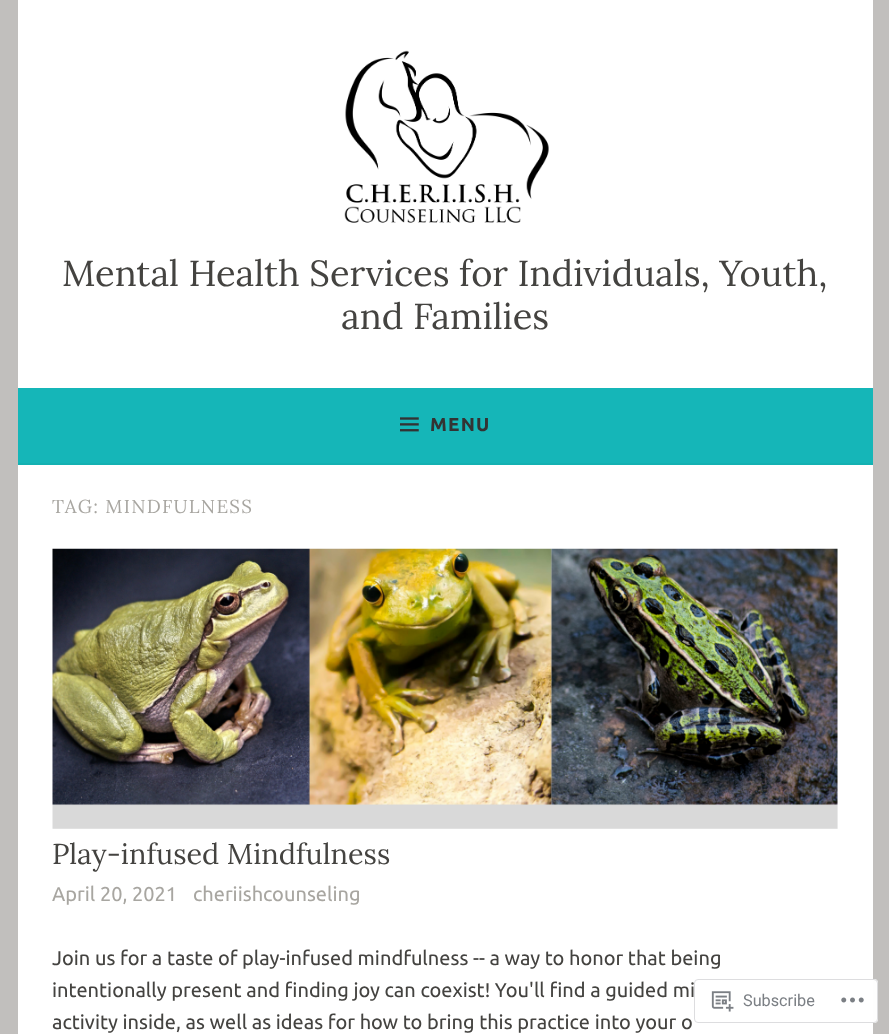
<!DOCTYPE html>
<meta charset="utf-8">
<style>body { margin: 0 } canvas { display: block }</style>
<canvas id="canvas" width="889" height="1034"></canvas>
<script type="module">
  const canvas = document.getElementById("canvas");
  const ctx = canvas.getContext("2d");
  ctx.miterLimit = 4;
  ctx.fontKerning = "normal";
  async function loadImage(src) {
    const img = new Image();
    img.src = src;
    await img.decode();
    return img;
  }

  ctx.fillStyle = "#c1bfbd";
  ctx.fillRect(0, 0, 889, 1034);
  ctx.fillStyle = "#ffffff";
  ctx.fillRect(18, 0, 855, 388);
  ctx.drawImage(await loadImage("img1.png"), 344, 50, 205, 173);
  ctx.font = "36.25px Lora";
  ctx.fillStyle = "#444340";
  ctx.fillText("Mental Health Services for Individuals, Youth,", 62, 286);
  ctx.fillText("and Families", 341, 329);
  ctx.fillStyle = "#15b6b8";
  ctx.fillRect(18, 388, 855, 75);
  ctx.fillStyle = "#14b1b2";
  ctx.fillRect(18, 463, 855, 2);
  ctx.drawImage(await loadImage("img2.png"), 400, 417, 19, 15);
  ctx.letterSpacing = "1.25px";
  ctx.font = "bold 18.75px Ubuntu";
  ctx.fillStyle = "#333333";
  ctx.fillText("MENU", 430, 431);
  ctx.fillStyle = "#ffffff";
  ctx.fillRect(18, 465, 855, 569);
  ctx.font = "18.75px Lora";
  ctx.fillStyle = "#a8a6a1";
  ctx.fillText("TAG: MINDFULNESS", 52, 513);
  ctx.fillStyle = "#f8f9f8";
  ctx.fillRect(53, 549, 785, 280);
  ctx.drawImage(await loadImage("img3.png"), 52, 548, 786, 281);
  ctx.letterSpacing = "0px";
  ctx.font = "28.75px Lora";
  ctx.fillStyle = "#444340";
  ctx.fillText("Play-infused Mindfulness", 52, 864);
  ctx.font = "20px Ubuntu";
  ctx.fillStyle = "#a8a6a1";
  ctx.fillText("April 20, 2021", 52, 901);
  ctx.fillText("cheriishcounseling", 193, 901);
  ctx.fillStyle = "#444340";
  ctx.fillText("Join us for a taste of play-infused mindfulness -- a way to honor that being", 52, 965);
  ctx.fillText("intentionally present and finding joy can coexist! You'll find a guided mi", 52, 997);
  ctx.fillText("activity inside, as well as ideas for how to bring this practice into your o", 52, 1029);
  ctx.fillStyle = "rgba(255, 255, 255, 0.98)";
  ctx.beginPath();
  ctx.roundRect(694, 979, 184, 44, 4);
  ctx.fill();
  ctx.beginPath();
  ctx.roundRect(694.5, 979.5, 183, 43, 3.5);
  ctx.strokeStyle = "rgba(220, 220, 222, 0.98)";
  ctx.stroke();
  ctx.drawImage(await loadImage("img4.png"), 711, 991, 23, 21);
  ctx.font = "16.25px Roboto";
  ctx.fillStyle = "#7b7f84";
  ctx.fillText("Subscribe", 743, 1006);
  ctx.drawImage(await loadImage("img5.png"), 841, 997, 23, 6);
</script>
